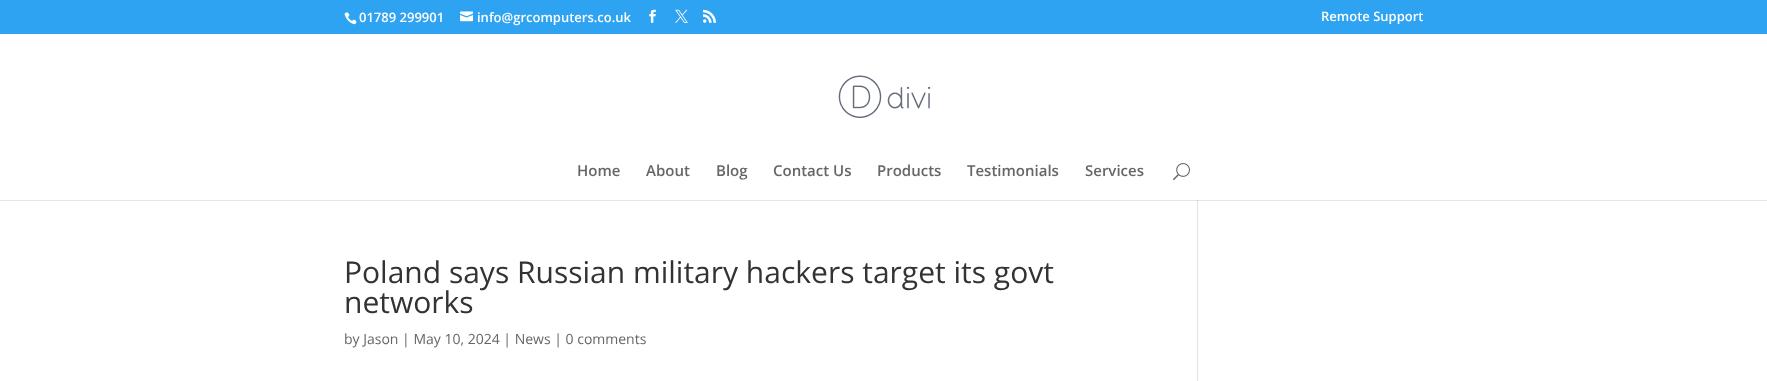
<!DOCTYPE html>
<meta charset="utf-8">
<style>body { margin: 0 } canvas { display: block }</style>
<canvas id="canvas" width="1767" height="381"></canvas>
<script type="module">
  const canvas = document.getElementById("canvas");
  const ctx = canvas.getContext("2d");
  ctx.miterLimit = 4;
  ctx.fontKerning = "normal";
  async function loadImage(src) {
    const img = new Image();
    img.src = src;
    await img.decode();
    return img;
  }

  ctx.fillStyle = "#ffffff";
  ctx.fillRect(0, 0, 1767, 381);
  ctx.fillStyle = "#e6e6e6";
  ctx.fillRect(0, 200, 1767, 1);
  ctx.fillStyle = "#2ea3f2";
  ctx.fillRect(0, 0, 1767, 34);
  ctx.drawImage(await loadImage("img1.png"), 344, 12, 13, 13);
  ctx.font = "600 13px Open Sans";
  ctx.fillStyle = "#ffffff";
  ctx.fillText("01789 299901", 359, 22);
  ctx.drawImage(await loadImage("img2.png"), 460, 11, 13, 11);
  ctx.fillText("info@grcomputers.co.uk", 477, 22);
  ctx.drawImage(await loadImage("img3.png"), 649, 9, 7, 14);
  ctx.drawImage(await loadImage("img4.png"), 675, 9, 13, 14);
  ctx.drawImage(await loadImage("img5.png"), 703, 9, 13, 14);
  ctx.fillText("Remote Support", 1321, 21);
  ctx.fillStyle = "#e2e2e2";
  ctx.fillRect(1197, 199, 1, 182);
  ctx.fillStyle = "#ffffff";
  ctx.fillRect(1197, 199, 1, 1);
  ctx.drawImage(await loadImage("img6.png"), 838, 75, 93, 43);
  ctx.font = "600 15px Open Sans";
  ctx.fillStyle = "#666666";
  ctx.fillText("Home", 577, 176);
  ctx.fillText("About", 646, 176);
  ctx.fillText("Blog", 716, 176);
  ctx.fillText("Contact Us", 773, 176);
  ctx.fillText("Products", 877, 176);
  ctx.fillText("Testimonials", 967, 176);
  ctx.fillText("Services", 1085, 176);
  ctx.drawImage(await loadImage("img7.png"), 1173, 163, 17, 18);
  ctx.font = "30px Open Sans";
  ctx.fillStyle = "#333333";
  ctx.fillText("Poland says Russian military hackers target its govt", 344, 283);
  ctx.fillText("networks", 344, 313);
  ctx.font = "14px Open Sans";
  ctx.fillStyle = "#666666";
  ctx.fillText("by Jason | May 10, 2024 | News | 0 comments", 344, 344);
  ctx.fillStyle = "#cbcbcb";
  ctx.fillRect(1197, 200, 1, 1);
</script>
